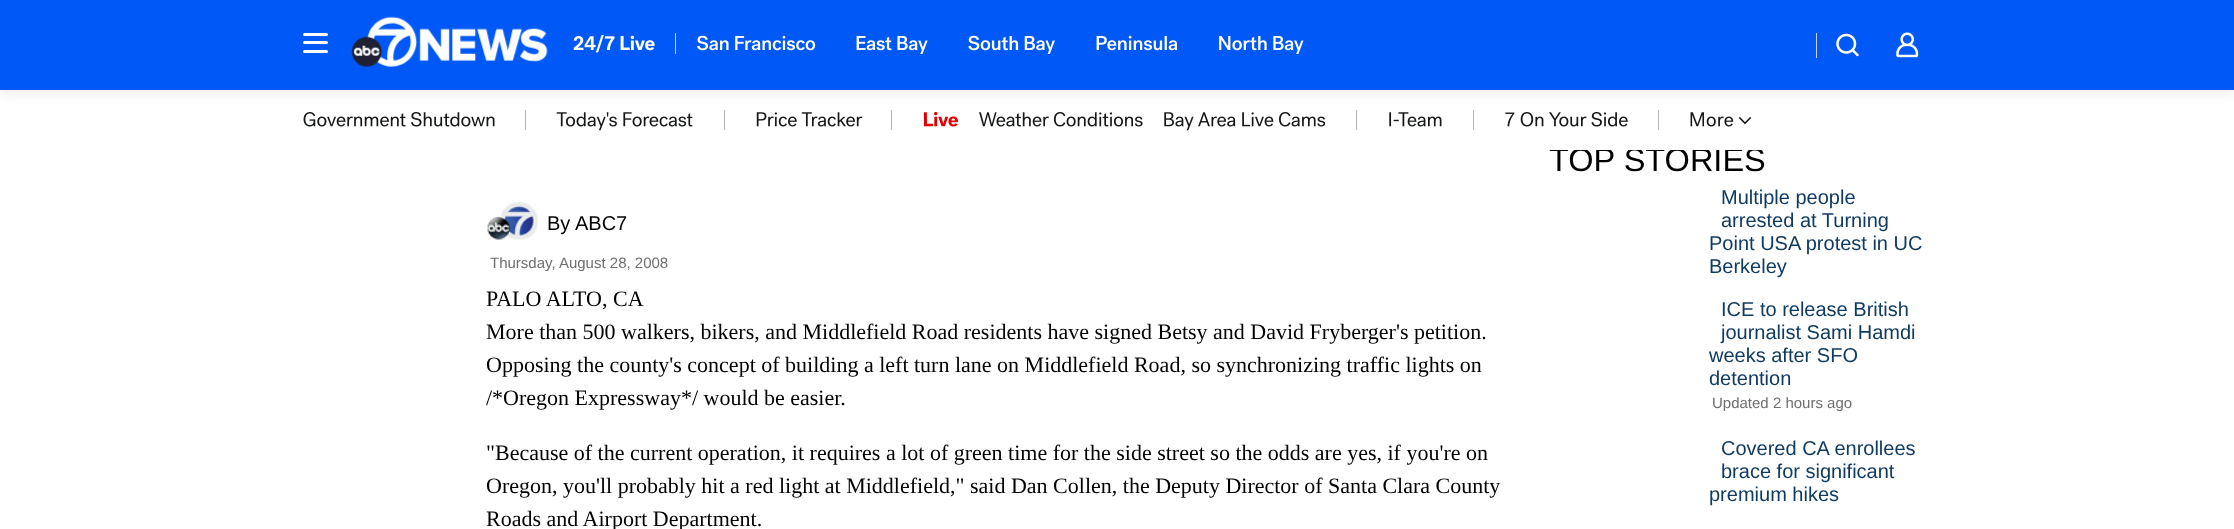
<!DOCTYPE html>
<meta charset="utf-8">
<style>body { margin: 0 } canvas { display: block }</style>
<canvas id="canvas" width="2234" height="529"></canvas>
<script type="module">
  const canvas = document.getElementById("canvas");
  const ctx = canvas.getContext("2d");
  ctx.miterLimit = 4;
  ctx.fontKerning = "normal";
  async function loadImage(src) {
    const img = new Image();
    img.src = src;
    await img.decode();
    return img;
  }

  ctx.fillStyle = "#ffffff";
  ctx.fillRect(0, 0, 2234, 529);
  ctx.fillStyle = "#b0b5be";
  ctx.fillRect(525, 110, 1, 20);
  ctx.fillRect(724, 110, 1, 20);
  ctx.fillRect(891, 110, 1, 20);
  ctx.fillRect(1356, 110, 1, 20);
  ctx.fillRect(1473, 110, 1, 20);
  ctx.fillRect(1658, 110, 1, 20);
  ctx.fillStyle = "rgba(0, 0, 0, 0.08)";
  ctx.filter = "blur(6px)";
  ctx.beginPath();
  ctx.rect(0, 3, 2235, 90);
  ctx.fill();
  ctx.filter = "none";
  ctx.fillStyle = "#0058f6";
  ctx.fillRect(0, 0, 2234, 90);
  ctx.fillStyle = "#ffffff";
  ctx.beginPath();
  ctx.roundRect(303, 41, 25, 3, 1.5);
  ctx.fill();
  ctx.beginPath();
  ctx.roundRect(303, 33, 25, 3, 1.5);
  ctx.fill();
  ctx.beginPath();
  ctx.roundRect(303, 50, 25, 3, 1.5);
  ctx.fill();
  ctx.drawImage(await loadImage("img1.png"), 351, 16, 197, 51);
  ctx.drawImage(await loadImage("img2.png"), 573, 34, 82, 19);
  ctx.fillStyle = "#cecfcf";
  ctx.fillRect(675, 33, 1, 21);
  ctx.drawImage(await loadImage("img3.png"), 697, 35, 119, 16);
  ctx.drawImage(await loadImage("img4.png"), 856, 36, 72, 18);
  ctx.drawImage(await loadImage("img5.png"), 968, 35, 87, 19);
  ctx.drawImage(await loadImage("img6.png"), 1096, 35, 82, 16);
  ctx.drawImage(await loadImage("img7.png"), 1219, 36, 85, 18);
  ctx.fillRect(1816, 33, 1, 25);
  ctx.drawImage(await loadImage("img8.png"), 1836, 33, 23, 24);
  ctx.drawImage(await loadImage("img9.png"), 1896, 32, 23, 26);
  ctx.font = "32.5px Liberation Sans";
  ctx.fillStyle = "#000000";
  ctx.fillText("TOP STORIES", 1549, 171);
  ctx.fillStyle = "#ffffff";
  ctx.fillRect(1549, 148, 213, 2);
  ctx.drawImage(await loadImage("img10.png"), 303, 112, 192, 15);
  ctx.drawImage(await loadImage("img11.png"), 556, 112, 137, 19);
  ctx.drawImage(await loadImage("img12.png"), 756, 112, 107, 15);
  ctx.drawImage(await loadImage("img13.png"), 923, 112, 35, 15);
  ctx.drawImage(await loadImage("img14.png"), 979, 112, 164, 15);
  ctx.drawImage(await loadImage("img15.png"), 1164, 112, 162, 19);
  ctx.drawImage(await loadImage("img16.png"), 1389, 112, 53, 15);
  ctx.drawImage(await loadImage("img17.png"), 1505, 112, 123, 15);
  ctx.drawImage(await loadImage("img18.png"), 1690, 112, 44, 15);
  ctx.drawImage(await loadImage("img19.png"), 1738, 117, 14, 8);
  ctx.drawImage(await loadImage("img20.png"), 487, 202, 51, 38);
  ctx.font = "20px Liberation Sans";
  ctx.fillStyle = "#000000";
  ctx.fillText("By", 547, 230);
  ctx.fillText("ABC7", 575, 230);
  ctx.font = "15px Liberation Sans";
  ctx.fillStyle = "#6e6e6e";
  ctx.fillText("Thursday, August 28, 2008", 490, 268);
  ctx.font = "22px Liberation Serif";
  ctx.fillStyle = "#000000";
  ctx.fillText("PALO ALTO, CA", 486, 306);
  ctx.fillText("More than 500 walkers, bikers, and Middlefield Road residents have signed Betsy and David Fryberger's petition.", 486, 339);
  ctx.fillText("Opposing the county's concept of building a left turn lane on Middlefield Road, so synchronizing traffic lights on", 486, 372);
  ctx.fillText("/*Oregon Expressway*/ would be easier.", 486, 405);
  ctx.fillText("\"Because of the current operation, it requires a lot of green time for the side street so the odds are yes, if you're on", 486, 460);
  ctx.fillText("Oregon, you'll probably hit a red light at Middlefield,\" said Dan Collen, the Deputy Director of Santa Clara County", 486, 493);
  ctx.fillText("Roads and Airport Department.", 486, 526);
  ctx.font = "20px Liberation Sans";
  ctx.fillStyle = "#103b61";
  ctx.fillText("Multiple people", 1721, 204);
  ctx.fillText("arrested at Turning", 1721, 227);
  ctx.fillText("Point USA protest in UC", 1709, 250);
  ctx.fillText("Berkeley", 1709, 273);
  ctx.fillText("ICE to release British", 1721, 316);
  ctx.fillText("journalist Sami Hamdi", 1721, 339);
  ctx.fillText("weeks after SFO", 1709, 362);
  ctx.fillText("detention", 1709, 385);
  ctx.font = "15px Liberation Sans";
  ctx.fillStyle = "#6e6e6e";
  ctx.fillText("Updated 2 hours ago", 1712, 408);
  ctx.font = "20px Liberation Sans";
  ctx.fillStyle = "#103b61";
  ctx.fillText("Covered CA enrollees", 1721, 455);
  ctx.fillText("brace for significant", 1721, 478);
  ctx.fillText("premium hikes", 1709, 501);
</script>
